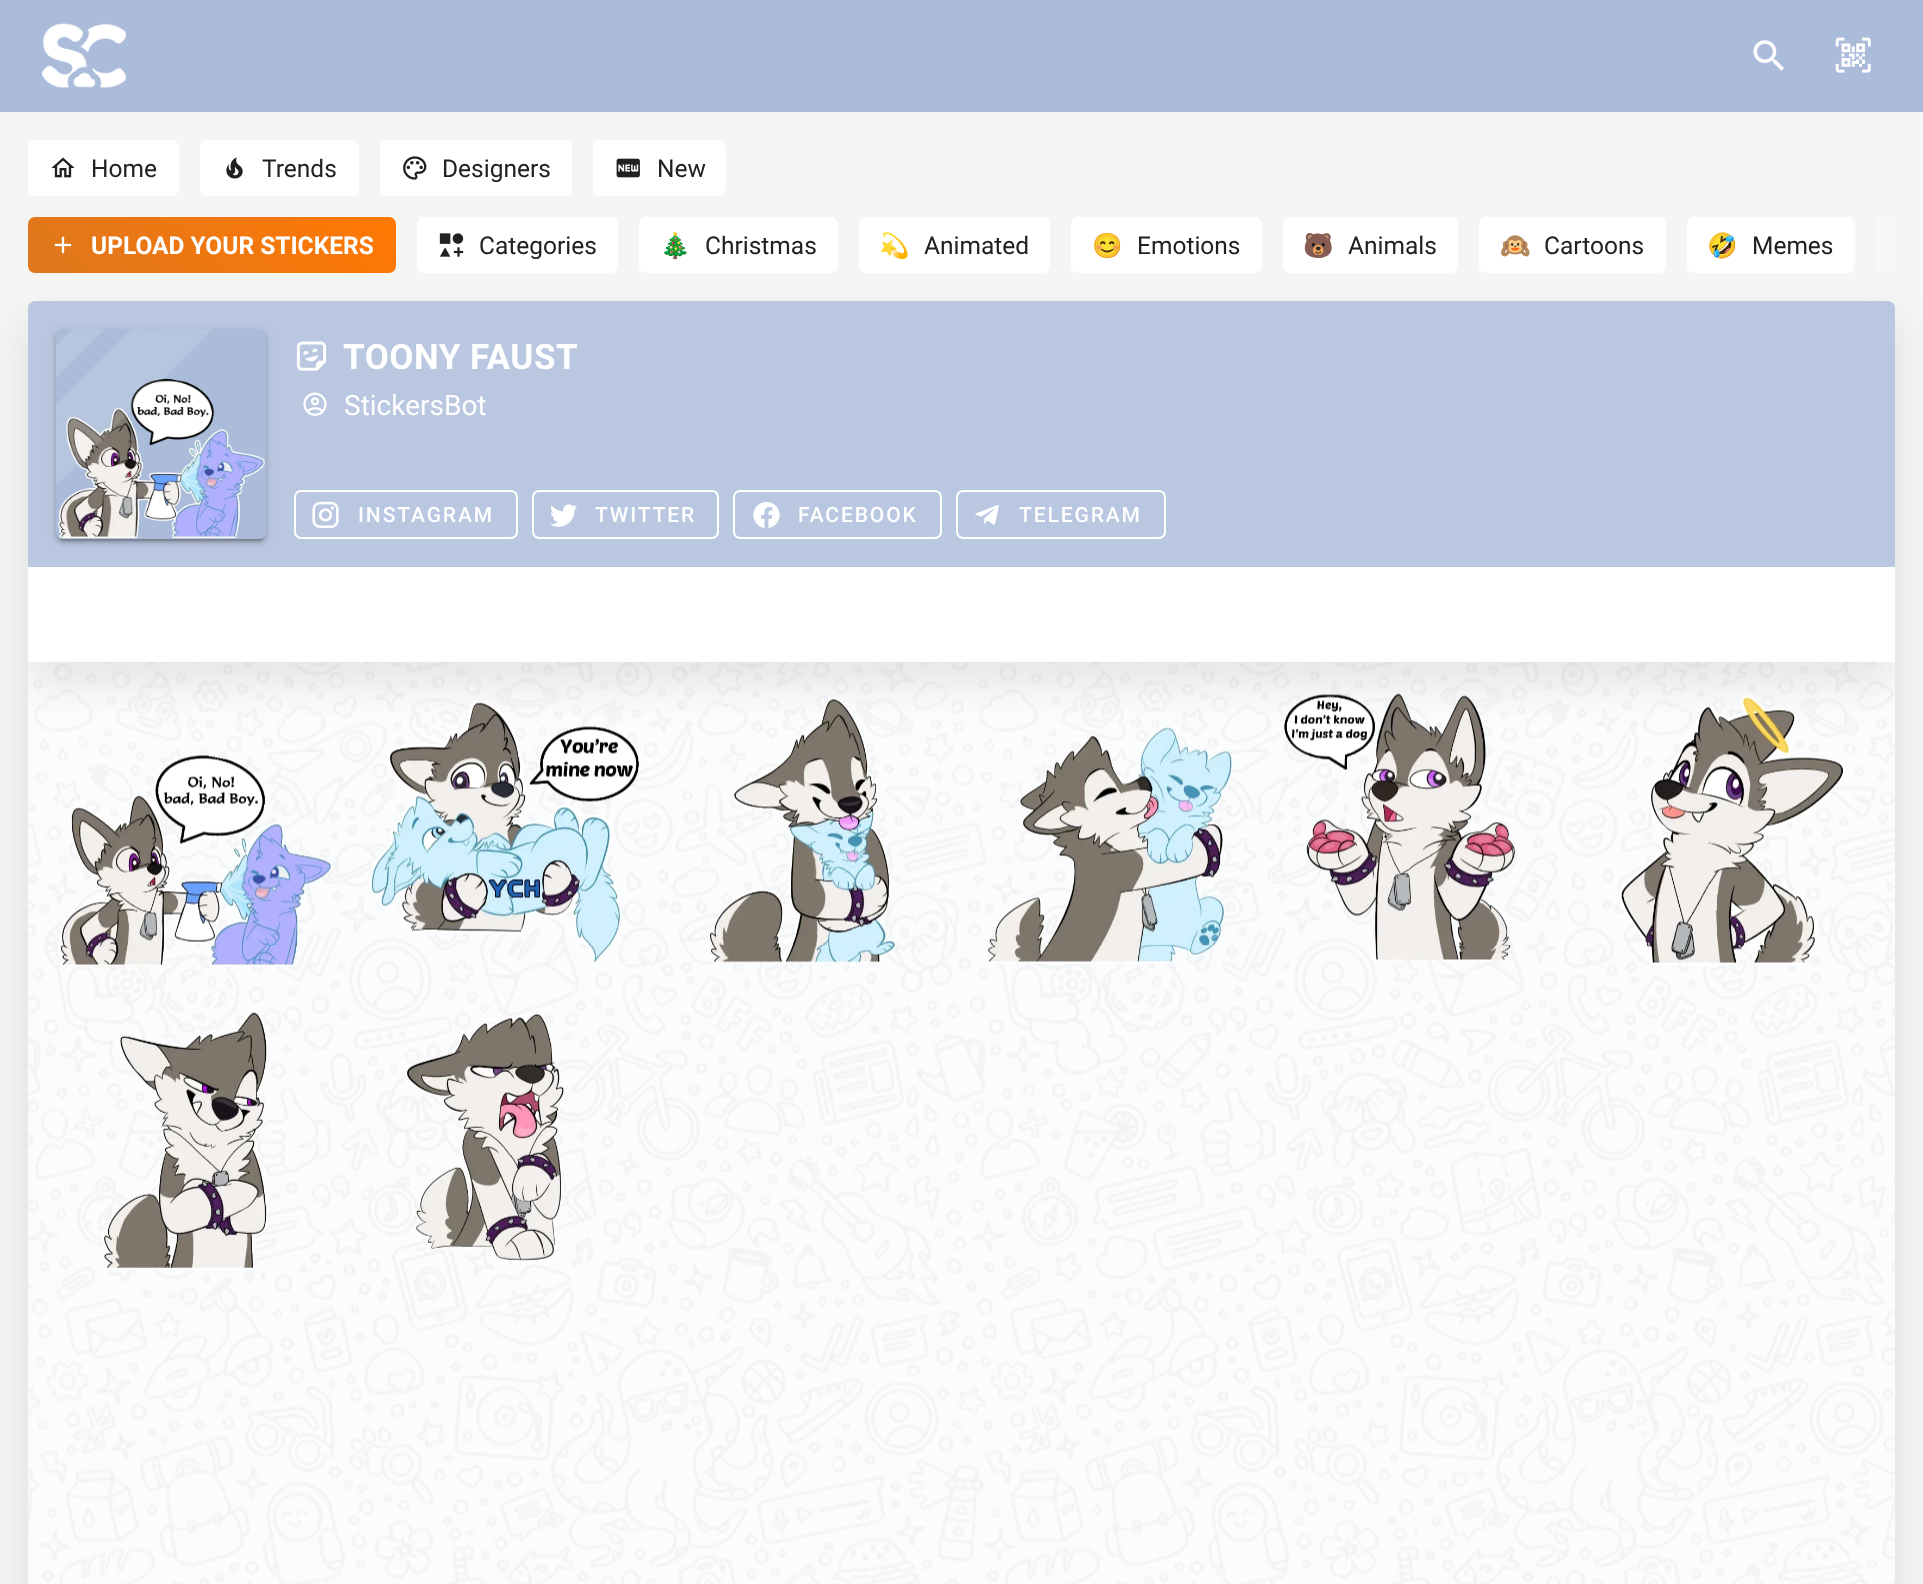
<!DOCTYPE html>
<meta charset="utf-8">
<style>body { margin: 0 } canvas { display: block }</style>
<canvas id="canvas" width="1923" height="1584"></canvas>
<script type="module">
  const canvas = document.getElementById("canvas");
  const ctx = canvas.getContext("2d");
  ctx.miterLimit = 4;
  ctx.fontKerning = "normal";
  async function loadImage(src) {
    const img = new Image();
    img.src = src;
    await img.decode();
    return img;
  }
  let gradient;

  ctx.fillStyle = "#f5f5f3";
  ctx.fillRect(0, 0, 1923, 1584);
  ctx.fillStyle = "#abbcda";
  ctx.fillRect(0, 0, 1923, 112);
  ctx.drawImage(await loadImage("img1.png"), 42, 23, 84, 65);
  ctx.drawImage(await loadImage("img2.png"), 1753, 40, 31, 31);
  ctx.drawImage(await loadImage("img3.png"), 1835, 37, 36, 36);
  ctx.fillStyle = "#ffffff";
  ctx.beginPath();
  ctx.roundRect(28, 140, 151, 56, 7);
  ctx.fill();
  ctx.drawImage(await loadImage("img4.png"), 51, 157, 24, 21);
  ctx.font = "24.5px Roboto";
  ctx.fillStyle = "#212121";
  ctx.fillText("Home", 91, 177);
  ctx.fillStyle = "#ffffff";
  ctx.beginPath();
  ctx.roundRect(200, 140, 159, 56, 7);
  ctx.fill();
  ctx.drawImage(await loadImage("img5.png"), 226, 157, 17, 22);
  ctx.fillStyle = "#212121";
  ctx.fillText("Trends", 262, 177);
  ctx.fillStyle = "#ffffff";
  ctx.beginPath();
  ctx.roundRect(380, 140, 192, 56, 7);
  ctx.fill();
  ctx.drawImage(await loadImage("img6.png"), 403, 156, 24, 24);
  ctx.fillStyle = "#212121";
  ctx.fillText("Designers", 442, 177);
  ctx.fillStyle = "#ffffff";
  ctx.beginPath();
  ctx.roundRect(593, 140, 133, 56, 7);
  ctx.fill();
  ctx.drawImage(await loadImage("img7.png"), 616, 158, 24, 20);
  ctx.fillStyle = "#212121";
  ctx.fillText("New", 657, 177);
  ctx.fillStyle = "rgba(102, 110, 98, 0.16)";
  ctx.filter = "blur(21px)";
  ctx.beginPath();
  ctx.roundRect(28, 322, 1867, 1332, 7);
  ctx.fill();
  ctx.filter = "none";
  gradient = ctx.createLinearGradient(106, 351, 318, 139);
  gradient.addColorStop(0, "#de771e");
  gradient.addColorStop(1, "#ff7802");
  ctx.fillStyle = gradient;
  ctx.beginPath();
  ctx.roundRect(28, 217, 368, 56, 7);
  ctx.fill();
  ctx.drawImage(await loadImage("img8.png"), 54, 236, 18, 18);
  ctx.font = "bold 24.5px Roboto";
  ctx.fillStyle = "#ffffff";
  ctx.fillText("UPLOAD YOUR STICKERS", 91, 254);
  ctx.beginPath();
  ctx.roundRect(417, 217, 201, 56, 7);
  ctx.fill();
  ctx.drawImage(await loadImage("img9.png"), 439, 233, 25, 24);
  ctx.font = "24.5px Roboto";
  ctx.fillStyle = "#212121";
  ctx.fillText("Categories", 479, 254);
  ctx.fillStyle = "#ffffff";
  ctx.beginPath();
  ctx.roundRect(639, 217, 199, 56, 7);
  ctx.fill();
  ctx.font = "24.5px Noto Color Emoji";
  ctx.fillStyle = "#212121";
  ctx.fillText("🎄", 660, 254);
  ctx.font = "24.5px Roboto";
  ctx.fillText("Christmas", 705, 254);
  ctx.fillStyle = "#ffffff";
  ctx.beginPath();
  ctx.roundRect(859, 217, 191, 56, 7);
  ctx.fill();
  ctx.font = "24.5px Noto Color Emoji";
  ctx.fillStyle = "#212121";
  ctx.fillText("💫", 879, 254);
  ctx.font = "24.5px Roboto";
  ctx.fillText("Animated", 924, 254);
  ctx.fillStyle = "#ffffff";
  ctx.beginPath();
  ctx.roundRect(1071, 217, 191, 56, 7);
  ctx.fill();
  ctx.font = "24.5px Noto Color Emoji";
  ctx.fillStyle = "#212121";
  ctx.fillText("😊", 1092, 254);
  ctx.font = "24.5px Roboto";
  ctx.fillText("Emotions", 1137, 254);
  ctx.fillStyle = "#ffffff";
  ctx.beginPath();
  ctx.roundRect(1283, 217, 175, 56, 7);
  ctx.fill();
  ctx.font = "24.5px Noto Color Emoji";
  ctx.fillStyle = "#212121";
  ctx.fillText("🐻", 1303, 254);
  ctx.font = "24.5px Roboto";
  ctx.fillText("Animals", 1348, 254);
  ctx.fillStyle = "#ffffff";
  ctx.beginPath();
  ctx.roundRect(1479, 217, 187, 56, 7);
  ctx.fill();
  ctx.font = "24.5px Noto Color Emoji";
  ctx.fillStyle = "#212121";
  ctx.fillText("🙉", 1500, 254);
  ctx.font = "24.5px Roboto";
  ctx.fillText("Cartoons", 1544, 254);
  ctx.fillStyle = "#ffffff";
  ctx.beginPath();
  ctx.roundRect(1687, 217, 168, 56, 7);
  ctx.fill();
  ctx.font = "24.5px Noto Color Emoji";
  ctx.fillStyle = "#212121";
  ctx.fillText("🤣", 1707, 254);
  ctx.font = "24.5px Roboto";
  ctx.fillText("Memes", 1752, 254);
  ctx.fillStyle = "#ffffff";
  ctx.beginPath();
  ctx.roundRect(1876, 217, 19, 56, [7, 0, 0, 7]);
  ctx.fill();
  gradient = ctx.createLinearGradient(1843, 245, 1895, 245);
  gradient.addColorStop(0, "rgba(245, 245, 243, 0)");
  gradient.addColorStop(1, "#f5f5f3");
  ctx.fillStyle = gradient;
  ctx.fillRect(1852, 217, 43, 56);
  ctx.fillStyle = "#ffffff";
  ctx.beginPath();
  ctx.roundRect(28, 301, 1867, 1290, 7);
  ctx.fill();
  ctx.save();
  ctx.beginPath();
  ctx.roundRect(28, 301, 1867, 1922, 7);
  ctx.clip();
  ctx.beginPath();
  ctx.moveTo(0, 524);
  ctx.lineTo(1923, 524);
  ctx.lineTo(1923, 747);
  ctx.lineTo(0, 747);
  ctx.closePath();
  ctx.moveTo(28, 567);
  ctx.lineTo(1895, 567);
  ctx.lineTo(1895, 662);
  ctx.lineTo(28, 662);
  ctx.closePath();
  ctx.clip("evenodd");
  ctx.fillStyle = "rgba(102, 110, 98, 0.16)";
  ctx.filter = "blur(21px)";
  ctx.beginPath();
  ctx.rect(28, 588, 1867, 95);
  ctx.fill();
  ctx.filter = "none";
  ctx.restore();
  ctx.fillStyle = "rgba(171, 188, 218, 0.84)";
  ctx.beginPath();
  ctx.roundRect(28, 301, 1867, 266, [7, 7, 0, 0]);
  ctx.fill();
  ctx.fillStyle = "rgba(0, 0, 0, 0.12)";
  ctx.filter = "blur(4.5px)";
  ctx.beginPath();
  ctx.roundRect(56, 331, 210, 210, 7);
  ctx.fill();
  ctx.filter = "none";
  ctx.fillStyle = "rgba(0, 0, 0, 0.14)";
  ctx.filter = "blur(2px)";
  ctx.beginPath();
  ctx.roundRect(56, 333, 210, 210, 7);
  ctx.fill();
  ctx.filter = "none";
  ctx.fillStyle = "rgba(0, 0, 0, 0.2)";
  ctx.filter = "blur(1px)";
  ctx.beginPath();
  ctx.roundRect(60, 338, 203, 203, 4);
  ctx.fill();
  ctx.filter = "none";
  ctx.fillStyle = "#abbcda";
  ctx.beginPath();
  ctx.roundRect(56, 329, 210, 210, 7);
  ctx.fill();
  ctx.drawImage(await loadImage("img11.png"), 57, 378, 209, 161);
  ctx.drawImage(await loadImage("img10.png"), 56, 329, 156, 156);
  ctx.drawImage(await loadImage("img12.png"), 296, 341, 31, 30);
  ctx.letterSpacing = "0.5px";
  ctx.font = "bold 35px Roboto";
  ctx.fillStyle = "#ffffff";
  ctx.fillText("TOONY FAUST", 343, 369);
  ctx.drawImage(await loadImage("img13.png"), 303, 392, 24, 24);
  ctx.letterSpacing = "0px";
  ctx.font = "28px Roboto";
  ctx.fillText("StickersBot", 344, 415);
  ctx.beginPath();
  ctx.roundRect(295, 491, 222, 47, 6);
  ctx.strokeStyle = "#ffffff";
  ctx.lineWidth = 2;
  ctx.stroke();
  ctx.drawImage(await loadImage("img14.png"), 312, 501, 27, 28);
  ctx.letterSpacing = "1.9px";
  ctx.font = "500 21px Roboto";
  ctx.fillText("INSTAGRAM", 358, 522);
  ctx.beginPath();
  ctx.roundRect(533, 491, 185, 47, 6);
  ctx.stroke();
  ctx.drawImage(await loadImage("img15.png"), 550, 504, 27, 23);
  ctx.fillText("TWITTER", 595, 522);
  ctx.beginPath();
  ctx.roundRect(734, 491, 207, 47, 6);
  ctx.stroke();
  ctx.drawImage(await loadImage("img16.png"), 753, 501, 27, 27);
  ctx.fillText("FACEBOOK", 798, 522);
  ctx.beginPath();
  ctx.roundRect(957, 491, 208, 47, 6);
  ctx.stroke();
  ctx.drawImage(await loadImage("img17.png"), 975, 505, 24, 20);
  ctx.fillText("TELEGRAM", 1019, 522);
  ctx.fillStyle = "rgba(171, 188, 218, 0.05)";
  ctx.fillRect(28, 662, 1867, 922);
  ctx.drawImage(await loadImage("img18.png"), 28, 662, 1867, 922);
  ctx.drawImage(await loadImage("img19.png"), 59, 755, 274, 212);
  ctx.drawImage(await loadImage("img20.png"), 369, 700, 270, 263);
  ctx.drawImage(await loadImage("img21.png"), 708, 697, 189, 267);
  ctx.drawImage(await loadImage("img22.png"), 987, 727, 246, 237);
  ctx.drawImage(await loadImage("img23.png"), 1284, 693, 231, 267);
  ctx.drawImage(await loadImage("img24.png"), 1619, 695, 227, 271);
  ctx.drawImage(await loadImage("img25.png"), 102, 1012, 166, 258);
  ctx.drawImage(await loadImage("img26.png"), 406, 1013, 158, 248);
</script>
